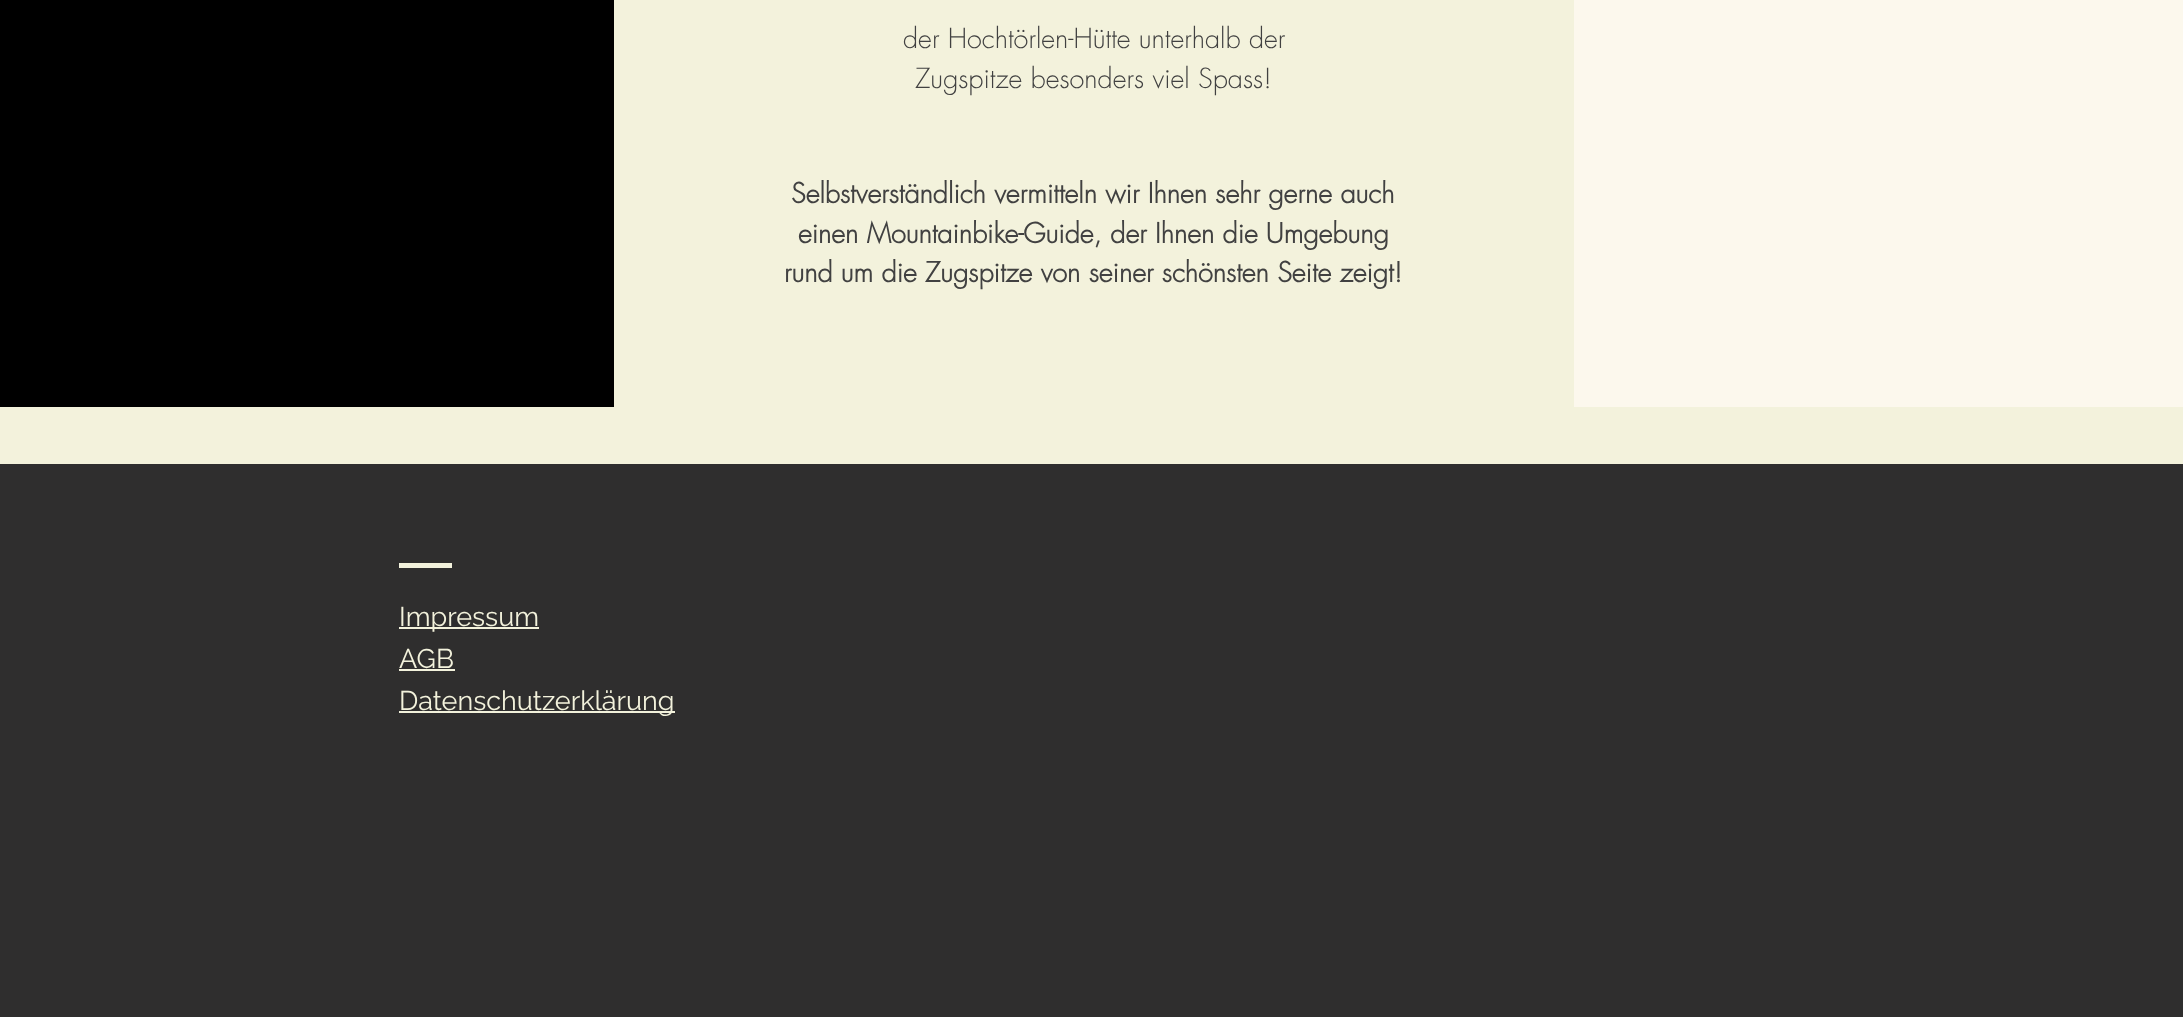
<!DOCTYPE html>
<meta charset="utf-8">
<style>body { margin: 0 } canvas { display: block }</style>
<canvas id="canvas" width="2183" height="1017"></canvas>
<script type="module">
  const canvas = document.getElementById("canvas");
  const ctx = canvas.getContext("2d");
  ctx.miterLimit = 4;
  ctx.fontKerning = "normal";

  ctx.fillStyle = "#f3f2dc";
  ctx.fillRect(0, 0, 2183, 1017);
  ctx.fillStyle = "#000000";
  ctx.fillRect(0, 0, 614, 407);
  ctx.font = "300 27px futura";
  ctx.fillStyle = "#414141";
  ctx.fillText("der Hochtörlen-Hütte unterhalb der", 903, 48);
  ctx.fillText("Zugspitze besonders viel Spass!", 915, 88);
  ctx.font = "bold 27px futura";
  ctx.fillText("Selbstverständlich vermitteln wir Ihnen sehr gerne auch", 791, 203);
  ctx.fillText("einen Mountainbike-Guide, der Ihnen die Umgebung", 798, 243);
  ctx.fillText("rund um die Zugspitze von seiner schönsten Seite zeigt!", 784, 282);
  ctx.fillStyle = "#fcf8ed";
  ctx.fillRect(1574, 0, 609, 407);
  ctx.fillStyle = "#2f2e2e";
  ctx.fillRect(0, 464, 2183, 553);
  ctx.fillStyle = "#f3f2dc";
  ctx.fillRect(399, 563, 53, 5);
  ctx.fillRect(399, 627, 140, 2);
  ctx.font = "27px Raleway";
  ctx.fillText("Impressum", 399, 626);
  ctx.fillText("AGB", 399, 668);
  ctx.fillRect(399, 669, 56, 2);
  ctx.fillRect(399, 711, 276, 2);
  ctx.fillText("Datenschutzerklärung", 399, 710);
</script>
